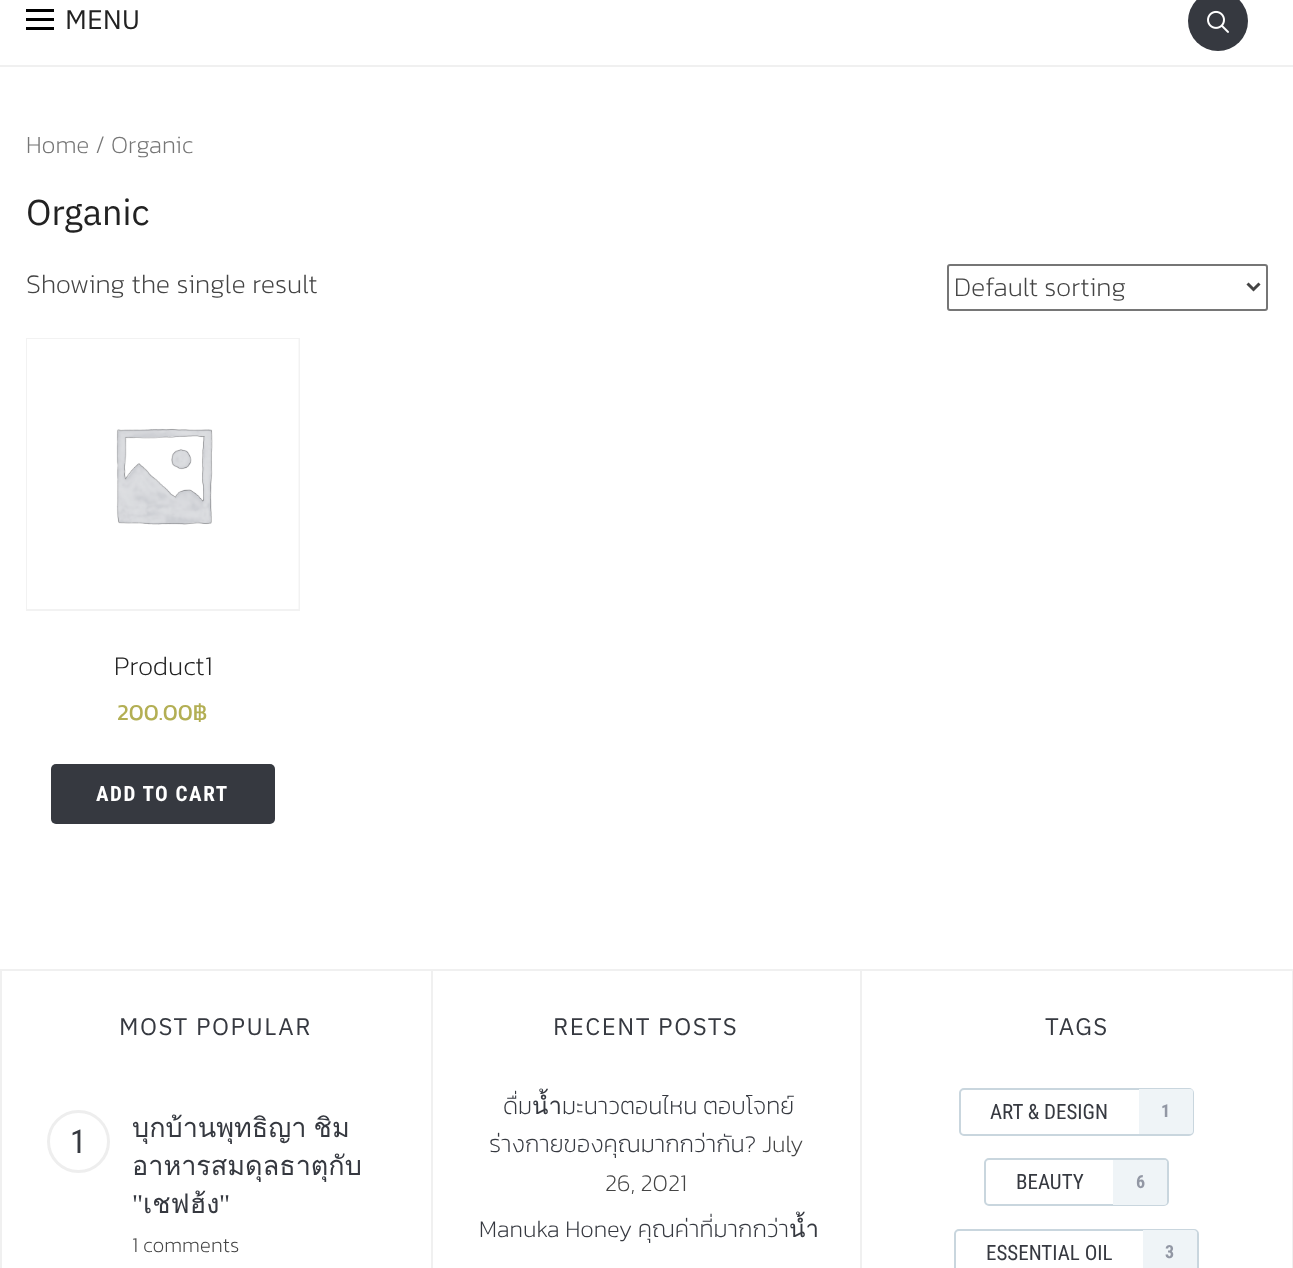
<!DOCTYPE html>
<meta charset="utf-8">
<style>body { margin: 0 } canvas { display: block }</style>
<canvas id="canvas" width="1293" height="1268"></canvas>
<script type="module">
  const canvas = document.getElementById("canvas");
  const ctx = canvas.getContext("2d");
  ctx.miterLimit = 4;
  ctx.fontKerning = "normal";
  async function loadImage(src) {
    const img = new Image();
    img.src = src;
    await img.decode();
    return img;
  }

  ctx.fillStyle = "#ffffff";
  ctx.fillRect(0, 0, 1293, 1268);
  ctx.fillStyle = "#f0f0f0";
  ctx.fillRect(0, 65, 1293, 2);
  ctx.fillStyle = "#000000";
  ctx.fillRect(26, 9, 28, 3);
  ctx.fillRect(26, 18, 28, 3);
  ctx.fillRect(26, 27, 28, 3);
  ctx.font = "27px IBM Plex Sans Thai";
  ctx.fillStyle = "#222222";
  ctx.fillText("MENU", 65, 29);
  ctx.fillStyle = "#363940";
  ctx.beginPath();
  ctx.arc(1218, 21, 30, 0, Math.PI * 2);
  ctx.fill();
  ctx.drawImage(await loadImage("img1.png"), 1207, 10, 22, 23);
  ctx.font = "200 24.75px Kanit";
  ctx.fillStyle = "#767676";
  ctx.fillText("Home / Organic", 26, 153);
  ctx.font = "36px IBM Plex Sans Thai";
  ctx.fillStyle = "#222222";
  ctx.fillText("Organic", 26, 225);
  ctx.font = "200 27px Kanit";
  ctx.fillStyle = "#444444";
  ctx.fillText("Showing the single result", 26, 293);
  ctx.beginPath();
  ctx.roundRect(948, 265, 319, 45, 2);
  ctx.strokeStyle = "#767676";
  ctx.lineWidth = 2;
  ctx.stroke();
  ctx.beginPath();
  ctx.moveTo(1247.5, 283.5);
  ctx.lineTo(1253.5, 289.5);
  ctx.lineTo(1259.5, 283.5);
  ctx.strokeStyle = "#444444";
  ctx.lineWidth = 3;
  ctx.stroke();
  ctx.fillText("Default sorting", 954, 296);
  ctx.strokeStyle = "#f2f2f2";
  ctx.lineWidth = 2;
  ctx.strokeRect(27, 339, 272, 271);
  ctx.drawImage(await loadImage("img2.png"), 27, 339, 272, 270);
  ctx.fillStyle = "#222222";
  ctx.fillText("Product1", 114, 675);
  ctx.font = "23px Kanit";
  ctx.fillStyle = "#b3af54";
  ctx.fillText("200.00฿", 117, 720);
  ctx.fillStyle = "#363940";
  ctx.beginPath();
  ctx.roundRect(51, 764, 224, 60, 5);
  ctx.fill();
  ctx.letterSpacing = "1.5px";
  ctx.font = "bold 21px Roboto Condensed";
  ctx.fillStyle = "#ffffff";
  ctx.fillText("ADD TO CART", 96, 801);
  ctx.fillStyle = "#f0f0f0";
  ctx.fillRect(0, 969, 1293, 2);
  ctx.fillRect(1292, 971, 1, 297);
  ctx.fillRect(0, 971, 2, 297);
  ctx.fillRect(431, 971, 2, 297);
  ctx.font = "24px IBM Plex Sans Thai";
  ctx.fillStyle = "#363940";
  ctx.fillText("MOST POPULAR", 119, 1035);
  ctx.beginPath();
  ctx.arc(78.5, 1141.5, 30, 0, Math.PI * 2);
  ctx.strokeStyle = "#eeeeee";
  ctx.lineWidth = 3;
  ctx.stroke();
  ctx.letterSpacing = "0px";
  ctx.font = "33px Roboto Condensed";
  ctx.fillText("1", 70, 1153);
  ctx.wordSpacing = "-2px";
  ctx.font = "27px Loma";
  ctx.fillText("บุกบ้านพุทธิญา ชิม", 132, 1137);
  ctx.wordSpacing = "0px";
  ctx.fillText("อาหารสมดุลธาตุกับ", 132, 1175);
  ctx.font = "27px Liberation Serif";
  ctx.fillText("\"", 132, 1213);
  ctx.font = "27px Loma";
  ctx.fillText("เชฟฮ้ง", 143, 1213);
  ctx.font = "27px Liberation Serif";
  ctx.fillText("\"", 219, 1213);
  ctx.font = "200 21px Kanit";
  ctx.fillStyle = "#444444";
  ctx.fillText("1 comments", 132, 1252);
  ctx.fillStyle = "#f0f0f0";
  ctx.fillRect(860, 971, 2, 297);
  ctx.letterSpacing = "1.5px";
  ctx.font = "24px IBM Plex Sans Thai";
  ctx.fillStyle = "#363940";
  ctx.fillText("RECENT POSTS", 553, 1035);
  ctx.letterSpacing = "0px";
  ctx.font = "200 24px Kanit";
  ctx.fillText("ดื่มน้ำมะนาวตอนไหน ตอบโจทย์", 503, 1114);
  ctx.fillText("ร่างกายของคุณมากกว่ากัน?", 489, 1152);
  ctx.fillStyle = "#444444";
  ctx.fillText("July", 762, 1152);
  ctx.fillText("26, 2021", 605, 1191);
  ctx.fillStyle = "#363940";
  ctx.fillText("Manuka Honey คุณค่าที่มากกว่าน้ำ", 479, 1237);
  ctx.letterSpacing = "1.5px";
  ctx.font = "24px IBM Plex Sans Thai";
  ctx.fillText("TAGS", 1045, 1035);
  ctx.beginPath();
  ctx.roundRect(960, 1089, 233, 46, 4);
  ctx.strokeStyle = "#c9d6de";
  ctx.lineWidth = 2;
  ctx.stroke();
  ctx.letterSpacing = "0px";
  ctx.font = "21px Roboto Condensed";
  ctx.fillText("ART & DESIGN", 990, 1119);
  ctx.fillStyle = "#eff4f7";
  ctx.beginPath();
  ctx.roundRect(1139, 1089, 54, 45, [0, 3, 3, 0]);
  ctx.fill();
  ctx.font = "bold 18px Roboto Condensed";
  ctx.fillStyle = "#9297a4";
  ctx.fillText("1", 1161, 1117);
  ctx.beginPath();
  ctx.roundRect(985, 1159, 183, 46, 4);
  ctx.stroke();
  ctx.font = "21px Roboto Condensed";
  ctx.fillStyle = "#363940";
  ctx.fillText("BEAUTY", 1016, 1189);
  ctx.fillStyle = "#eff4f7";
  ctx.beginPath();
  ctx.roundRect(1113, 1160, 54, 45, [0, 3, 3, 0]);
  ctx.fill();
  ctx.font = "bold 18px Roboto Condensed";
  ctx.fillStyle = "#9297a4";
  ctx.fillText("6", 1136, 1188);
  ctx.beginPath();
  ctx.roundRect(955, 1230, 243, 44, 4);
  ctx.stroke();
  ctx.font = "21px Roboto Condensed";
  ctx.fillStyle = "#363940";
  ctx.fillText("ESSENTIAL OIL", 986, 1260);
  ctx.fillStyle = "#eff4f7";
  ctx.beginPath();
  ctx.moveTo(1143, 1230);
  ctx.lineTo(1194, 1230);
  ctx.bezierCurveTo(1195.5, 1230, 1197, 1231.5, 1197, 1233);
  ctx.lineTo(1197, 1268);
  ctx.bezierCurveTo(1197, 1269.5, 1195.5, 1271, 1194, 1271);
  ctx.lineTo(1143, 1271);
  ctx.closePath();
  ctx.fill();
  ctx.font = "bold 18px Roboto Condensed";
  ctx.fillStyle = "#9297a4";
  ctx.fillText("3", 1165, 1258);
</script>
